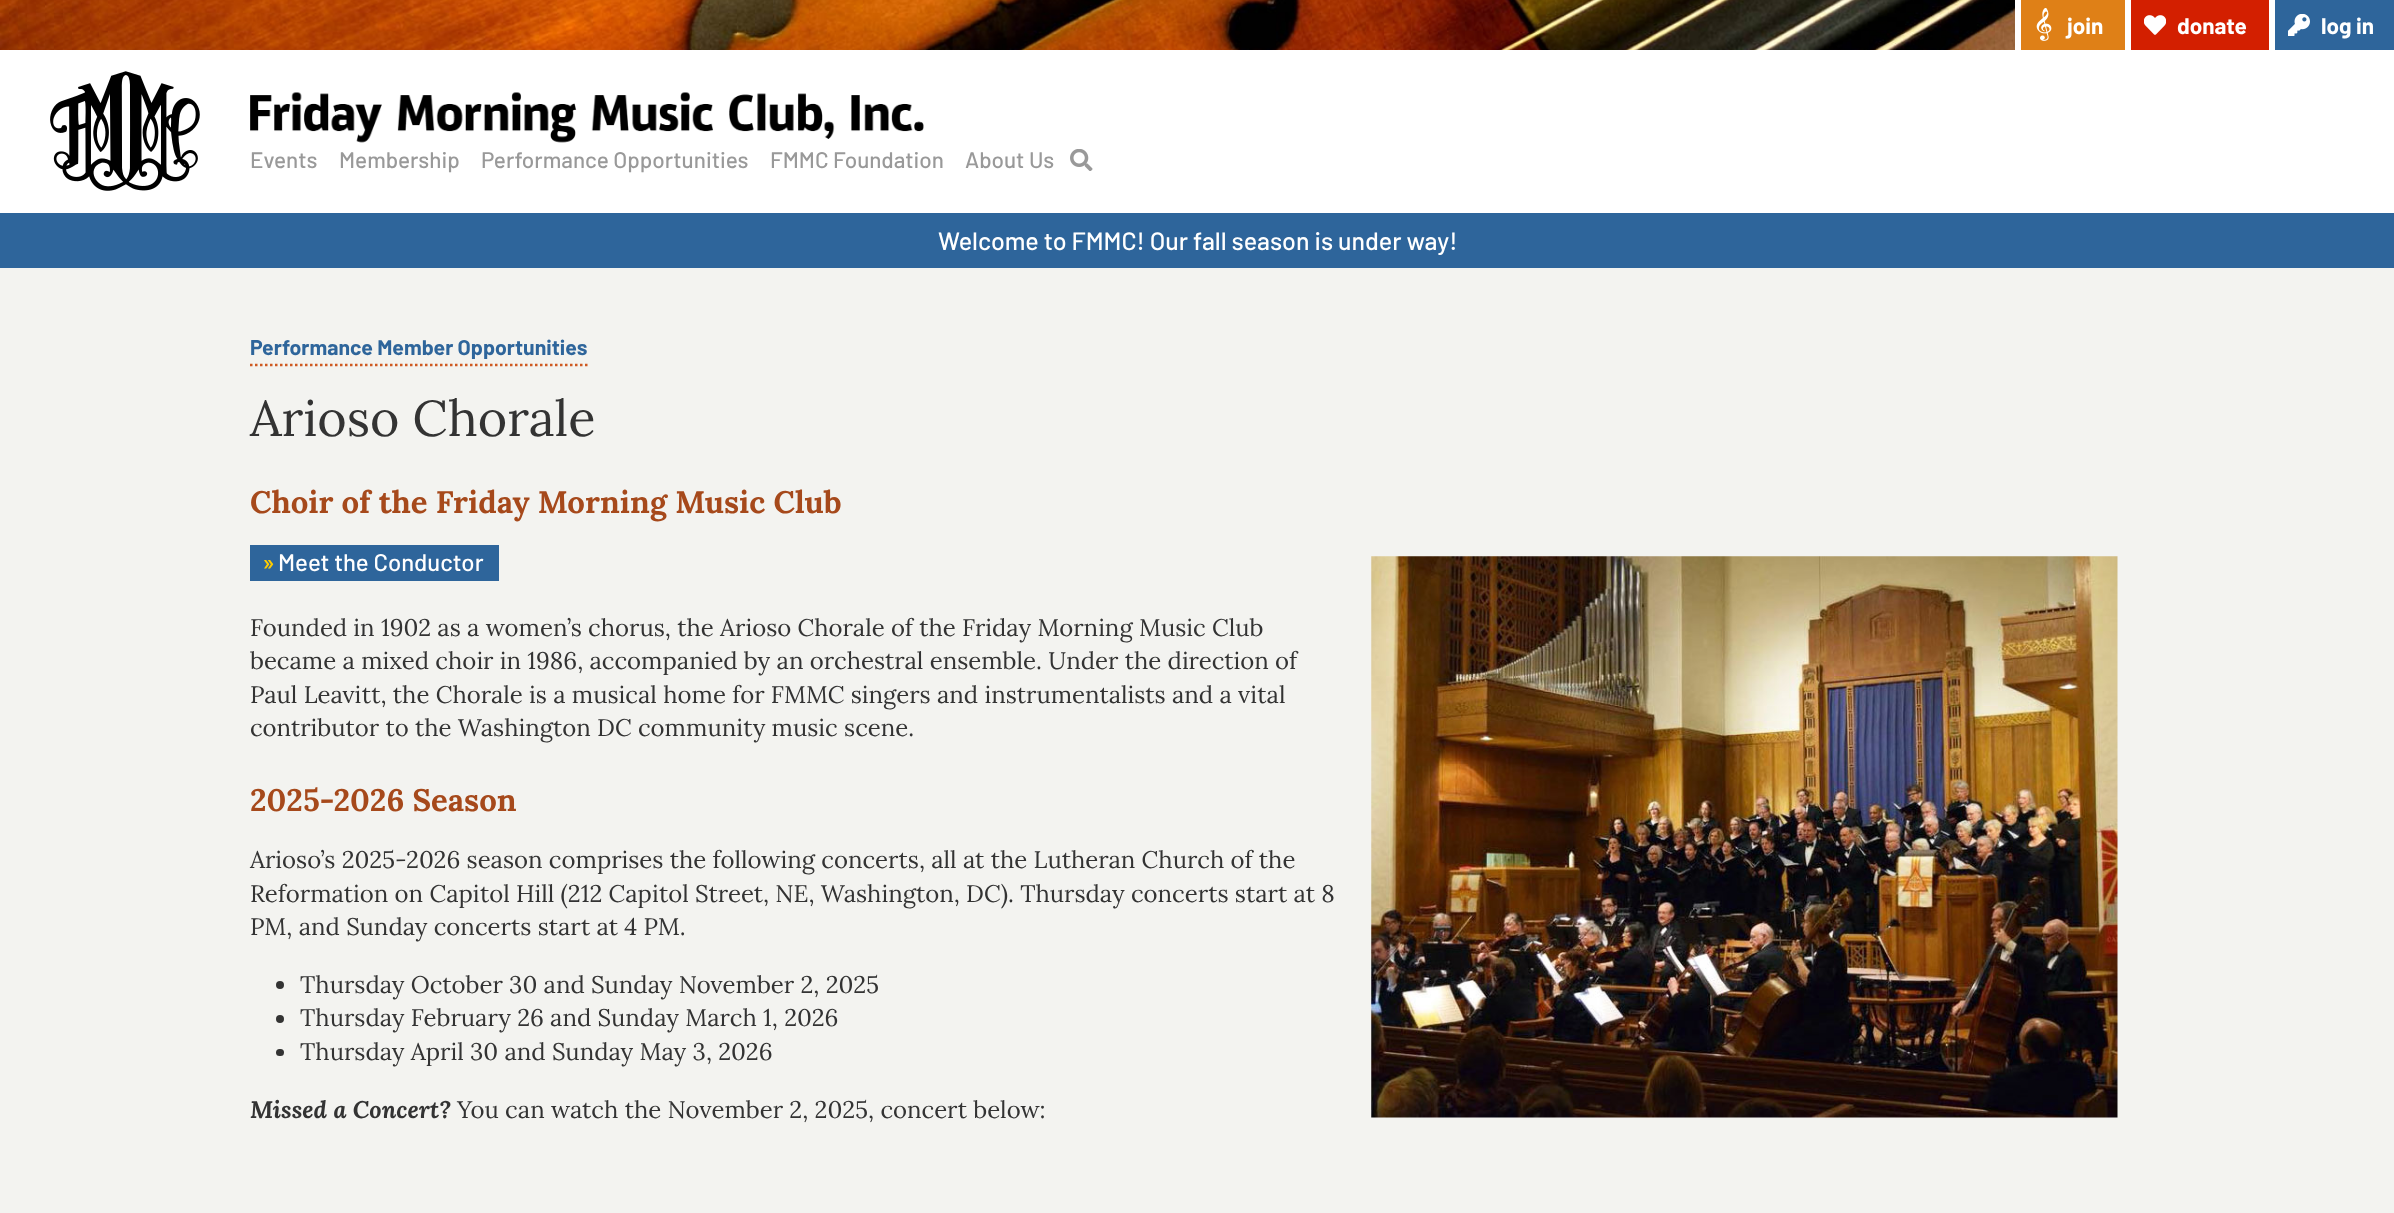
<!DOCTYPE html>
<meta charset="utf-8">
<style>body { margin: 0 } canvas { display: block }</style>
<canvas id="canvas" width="2394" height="1213"></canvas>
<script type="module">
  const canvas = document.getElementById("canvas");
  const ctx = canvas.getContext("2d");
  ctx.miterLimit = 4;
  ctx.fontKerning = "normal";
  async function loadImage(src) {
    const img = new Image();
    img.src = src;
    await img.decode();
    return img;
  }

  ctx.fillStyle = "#ffffff";
  ctx.fillRect(0, 0, 2394, 1213);
  ctx.drawImage(await loadImage("img1.png"), 0, 0, 2015, 50);
  ctx.fillStyle = "#df8017";
  ctx.fillRect(2021, 0, 104, 50);
  ctx.drawImage(await loadImage("img2.png"), 2036, 8, 16, 33);
  ctx.font = "bold 22.5px Barlow";
  ctx.fillStyle = "#ffffff";
  ctx.fillText("join", 2067, 34);
  ctx.fillStyle = "#d31f00";
  ctx.fillRect(2131, 0, 138, 50);
  ctx.drawImage(await loadImage("img3.png"), 2144, 15, 22, 20);
  ctx.fillStyle = "#ffffff";
  ctx.fillText("donate", 2177, 34);
  ctx.fillStyle = "#2e659b";
  ctx.fillRect(2275, 0, 119, 50);
  ctx.drawImage(await loadImage("img4.png"), 2288, 14, 22, 22);
  ctx.fillStyle = "#ffffff";
  ctx.fillText("log in", 2321, 34);
  ctx.drawImage(await loadImage("img5.png"), 50, 71, 150, 120);
  ctx.drawImage(await loadImage("img6.png"), 250, 92, 674, 51);
  ctx.font = "500 22.5px Barlow";
  ctx.fillStyle = "#999999";
  ctx.fillText("Events", 250, 168);
  ctx.fillText("Membership", 339, 168);
  ctx.fillText("Performance Opportunities", 481, 168);
  ctx.fillText("FMMC Foundation", 770, 168);
  ctx.fillText("About Us", 965, 168);
  ctx.drawImage(await loadImage("img7.png"), 1070, 149, 23, 22);
  ctx.fillStyle = "#2e659b";
  ctx.fillRect(0, 213, 2394, 55);
  ctx.font = "500 25px Barlow";
  ctx.fillStyle = "#ffffff";
  ctx.fillText("Welcome to FMMC! Our fall season is under way!", 938, 250);
  ctx.fillStyle = "#f3f3f0";
  ctx.fillRect(0, 268, 2394, 945);
  ctx.beginPath();
  ctx.moveTo(250, 365);
  ctx.lineTo(587.5, 365);
  ctx.strokeStyle = "#ce5a22";
  ctx.lineWidth = 2.5;
  ctx.setLineDash([2.5, 2.5]);
  ctx.stroke();
  ctx.font = "bold 21.25px Barlow";
  ctx.fillStyle = "#2e659b";
  ctx.fillText("Performance Member Opportunities", 250, 355);
  ctx.font = "50.25px Lora";
  ctx.fillStyle = "#333333";
  ctx.fillText("Arioso Chorale", 250, 436);
  ctx.font = "bold 31.1px Lora";
  ctx.fillStyle = "#a6491b";
  ctx.fillText("Choir of the Friday Morning Music Club", 250, 513);
  ctx.fillStyle = "#2e659b";
  ctx.fillRect(250, 545, 249, 36);
  ctx.font = "500 23.95px Barlow";
  ctx.fillStyle = "#ffcc00";
  ctx.fillText("»", 262, 571);
  ctx.fillStyle = "#ffffff";
  ctx.fillText("Meet the Conductor", 278, 571);
  ctx.drawImage(await loadImage("img8.png"), 1371, 556, 747, 562);
  ctx.font = "23.95px Lora";
  ctx.fillStyle = "#333333";
  ctx.fillText("Founded in 1902 as a women’s chorus, the Arioso Chorale of the Friday Morning Music Club", 250, 636);
  ctx.fillText("became a mixed choir in 1986, accompanied by an orchestral ensemble. Under the direction of", 250, 669);
  ctx.fillText("Paul Leavitt, the Chorale is a musical home for FMMC singers and instrumentalists and a vital", 250, 703);
  ctx.fillText("contributor to the Washington DC community music scene.", 250, 736);
  ctx.font = "bold 31.1px Lora";
  ctx.fillStyle = "#a6491b";
  ctx.fillText("2025-2026 Season", 250, 811);
  ctx.font = "23.95px Lora";
  ctx.fillStyle = "#333333";
  ctx.fillText("Arioso’s 2025-2026 season comprises the following concerts, all at the Lutheran Church of the", 250, 868);
  ctx.fillText("Reformation on Capitol Hill (212 Capitol Street, NE, Washington, DC). Thursday concerts start at 8", 250, 902);
  ctx.fillText("PM, and Sunday concerts start at 4 PM.", 250, 935);
  ctx.beginPath();
  ctx.arc(280, 985, 4, 0, Math.PI * 2);
  ctx.fill();
  ctx.fillText("Thursday October 30 and Sunday November 2, 2025", 300, 993);
  ctx.beginPath();
  ctx.arc(280, 1019, 4, 0, Math.PI * 2);
  ctx.fill();
  ctx.fillText("Thursday February 26 and Sunday March 1, 2026", 300, 1026);
  ctx.beginPath();
  ctx.roundRect(276, 1049, 8, 7, 3.5);
  ctx.fill();
  ctx.fillText("Thursday April 30 and Sunday May 3, 2026", 300, 1060);
  ctx.font = "italic bold 23.95px Lora";
  ctx.fillText("Missed a Concert?", 250, 1118);
  ctx.font = "23.95px Lora";
  ctx.fillText("You can watch the November 2, 2025, concert below:", 457, 1118);
</script>
